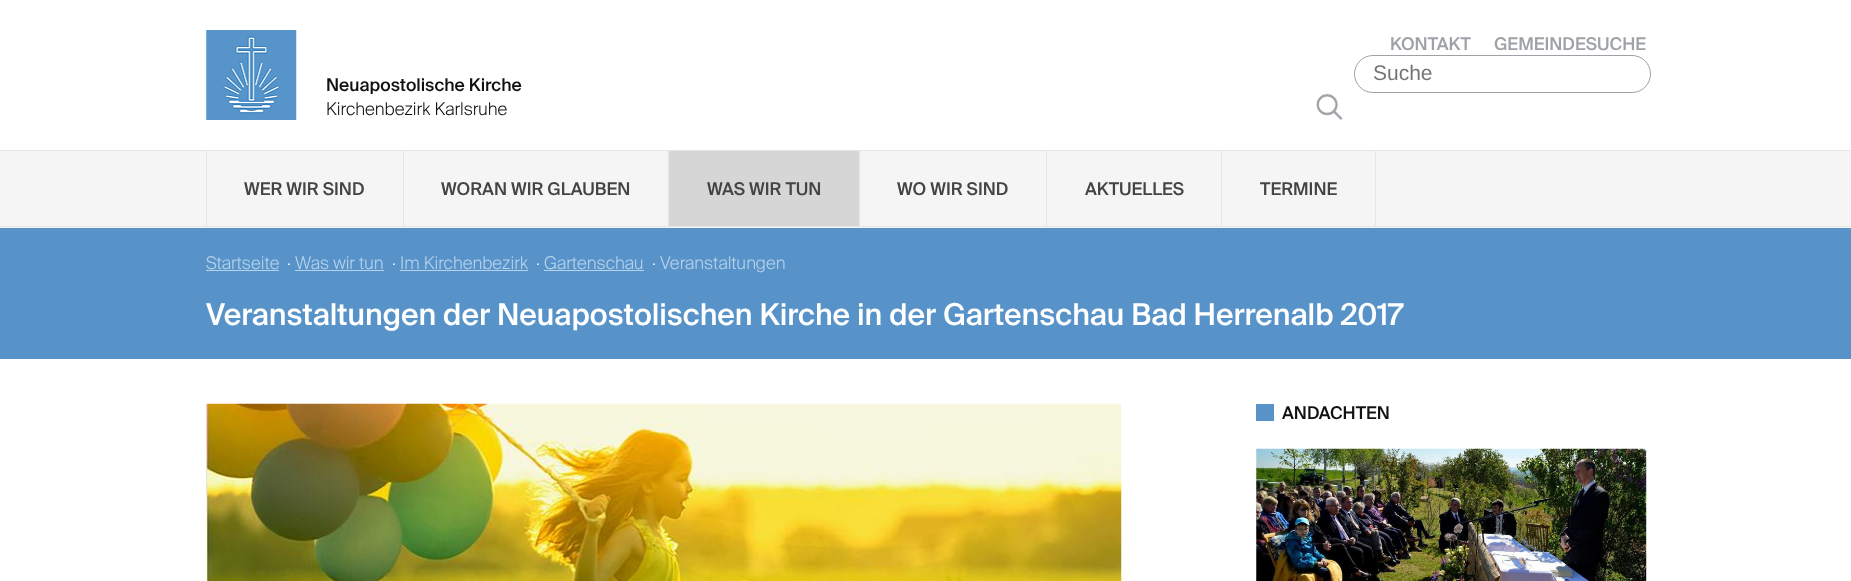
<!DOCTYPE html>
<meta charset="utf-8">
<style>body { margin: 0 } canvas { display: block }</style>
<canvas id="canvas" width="1851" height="581"></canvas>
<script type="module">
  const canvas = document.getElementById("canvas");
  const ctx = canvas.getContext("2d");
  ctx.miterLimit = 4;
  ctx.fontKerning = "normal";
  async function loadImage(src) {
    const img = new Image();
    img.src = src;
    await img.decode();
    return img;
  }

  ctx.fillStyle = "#ffffff";
  ctx.fillRect(0, 0, 1851, 581);
  ctx.font = "500 17.5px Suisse";
  ctx.fillStyle = "#9ea1a6";
  ctx.fillText("KONTAKT", 1390, 50);
  ctx.fillText("GEMEINDESUCHE", 1494, 50);
  ctx.beginPath();
  ctx.roundRect(1354.5, 55.5, 296, 37, 18.5);
  ctx.strokeStyle = "#9ea1a6";
  ctx.stroke();
  ctx.font = "21px Liberation Sans";
  ctx.fillStyle = "#757575";
  ctx.fillText("Suche", 1373, 80);
  ctx.drawImage(await loadImage("img1.png"), 1316, 93, 27, 27);
  ctx.drawImage(await loadImage("img2.png"), 206, 30, 91, 90);
  ctx.font = "500 17.5px Suisse";
  ctx.fillStyle = "#111111";
  ctx.fillText("Neuapostolische Kirche", 326, 91);
  ctx.font = "300 17.5px Suisse";
  ctx.fillText("Kirchenbezirk Karlsruhe", 326, 115);
  ctx.fillStyle = "#f5f5f5";
  ctx.fillRect(0, 151, 1851, 77);
  ctx.fillStyle = "#e6e6e6";
  ctx.fillRect(0, 150, 1851, 1);
  ctx.fillRect(0, 226, 1851, 1);
  ctx.fillRect(206, 151, 1, 75);
  ctx.font = "500 17.5px Suisse";
  ctx.fillStyle = "#444444";
  ctx.fillText("WER WIR SIND", 244, 195);
  ctx.fillStyle = "#e6e6e6";
  ctx.fillRect(403, 151, 1, 75);
  ctx.fillStyle = "#444444";
  ctx.fillText("WORAN WIR GLAUBEN", 441, 195);
  ctx.fillStyle = "#e6e6e6";
  ctx.fillRect(668, 151, 1, 75);
  ctx.fillStyle = "#d6d6d6";
  ctx.fillRect(669, 151, 190, 75);
  ctx.fillStyle = "#444444";
  ctx.fillText("WAS WIR TUN", 707, 195);
  ctx.fillStyle = "#e6e6e6";
  ctx.fillRect(859, 151, 1, 75);
  ctx.fillStyle = "#444444";
  ctx.fillText("WO WIR SIND", 897, 195);
  ctx.fillStyle = "#e6e6e6";
  ctx.fillRect(1046, 151, 1, 75);
  ctx.fillStyle = "#444444";
  ctx.fillText("AKTUELLES", 1085, 195);
  ctx.fillStyle = "#e6e6e6";
  ctx.fillRect(1375, 151, 1, 75);
  ctx.fillRect(1221, 151, 1, 75);
  ctx.fillStyle = "#444444";
  ctx.fillText("TERMINE", 1260, 195);
  ctx.fillStyle = "#5793c9";
  ctx.fillRect(0, 228, 1851, 131);
  ctx.font = "300 17.5px Suisse";
  ctx.fillStyle = "#b7d2eb";
  ctx.fillText("Startseite", 206, 269);
  ctx.fillRect(206, 270, 73, 1);
  ctx.fillStyle = "#ffffff";
  ctx.fillText("·", 287, 269);
  ctx.fillStyle = "#b7d2eb";
  ctx.fillText("Was wir tun", 295, 269);
  ctx.fillRect(295, 270, 89, 1);
  ctx.fillStyle = "#ffffff";
  ctx.fillText("·", 392, 269);
  ctx.fillStyle = "#b7d2eb";
  ctx.fillText("Im Kirchenbezirk", 400, 269);
  ctx.fillRect(400, 270, 128, 1);
  ctx.fillStyle = "#ffffff";
  ctx.fillText("·", 536, 269);
  ctx.fillStyle = "#b7d2eb";
  ctx.fillText("Gartenschau", 544, 269);
  ctx.fillRect(544, 270, 100, 1);
  ctx.fillStyle = "#ffffff";
  ctx.fillText("·", 652, 269);
  ctx.fillStyle = "#b7d2eb";
  ctx.fillText("Veranstaltungen", 660, 269);
  ctx.font = "500 30px Suisse";
  ctx.fillStyle = "#ffffff";
  ctx.fillText("Veranstaltungen der Neuapostolischen Kirche in der Gartenschau Bad Herrenalb 2017", 206, 325);
  ctx.drawImage(await loadImage("img3.png"), 206, 403, 916, 178);
  ctx.fillStyle = "#5793c9";
  ctx.fillRect(1256, 404, 18, 17);
  ctx.font = "500 17.5px Suisse";
  ctx.fillStyle = "#111111";
  ctx.fillText("ANDACHTEN", 1282, 419);
  ctx.drawImage(await loadImage("img4.png"), 1256, 448, 391, 133);
</script>
